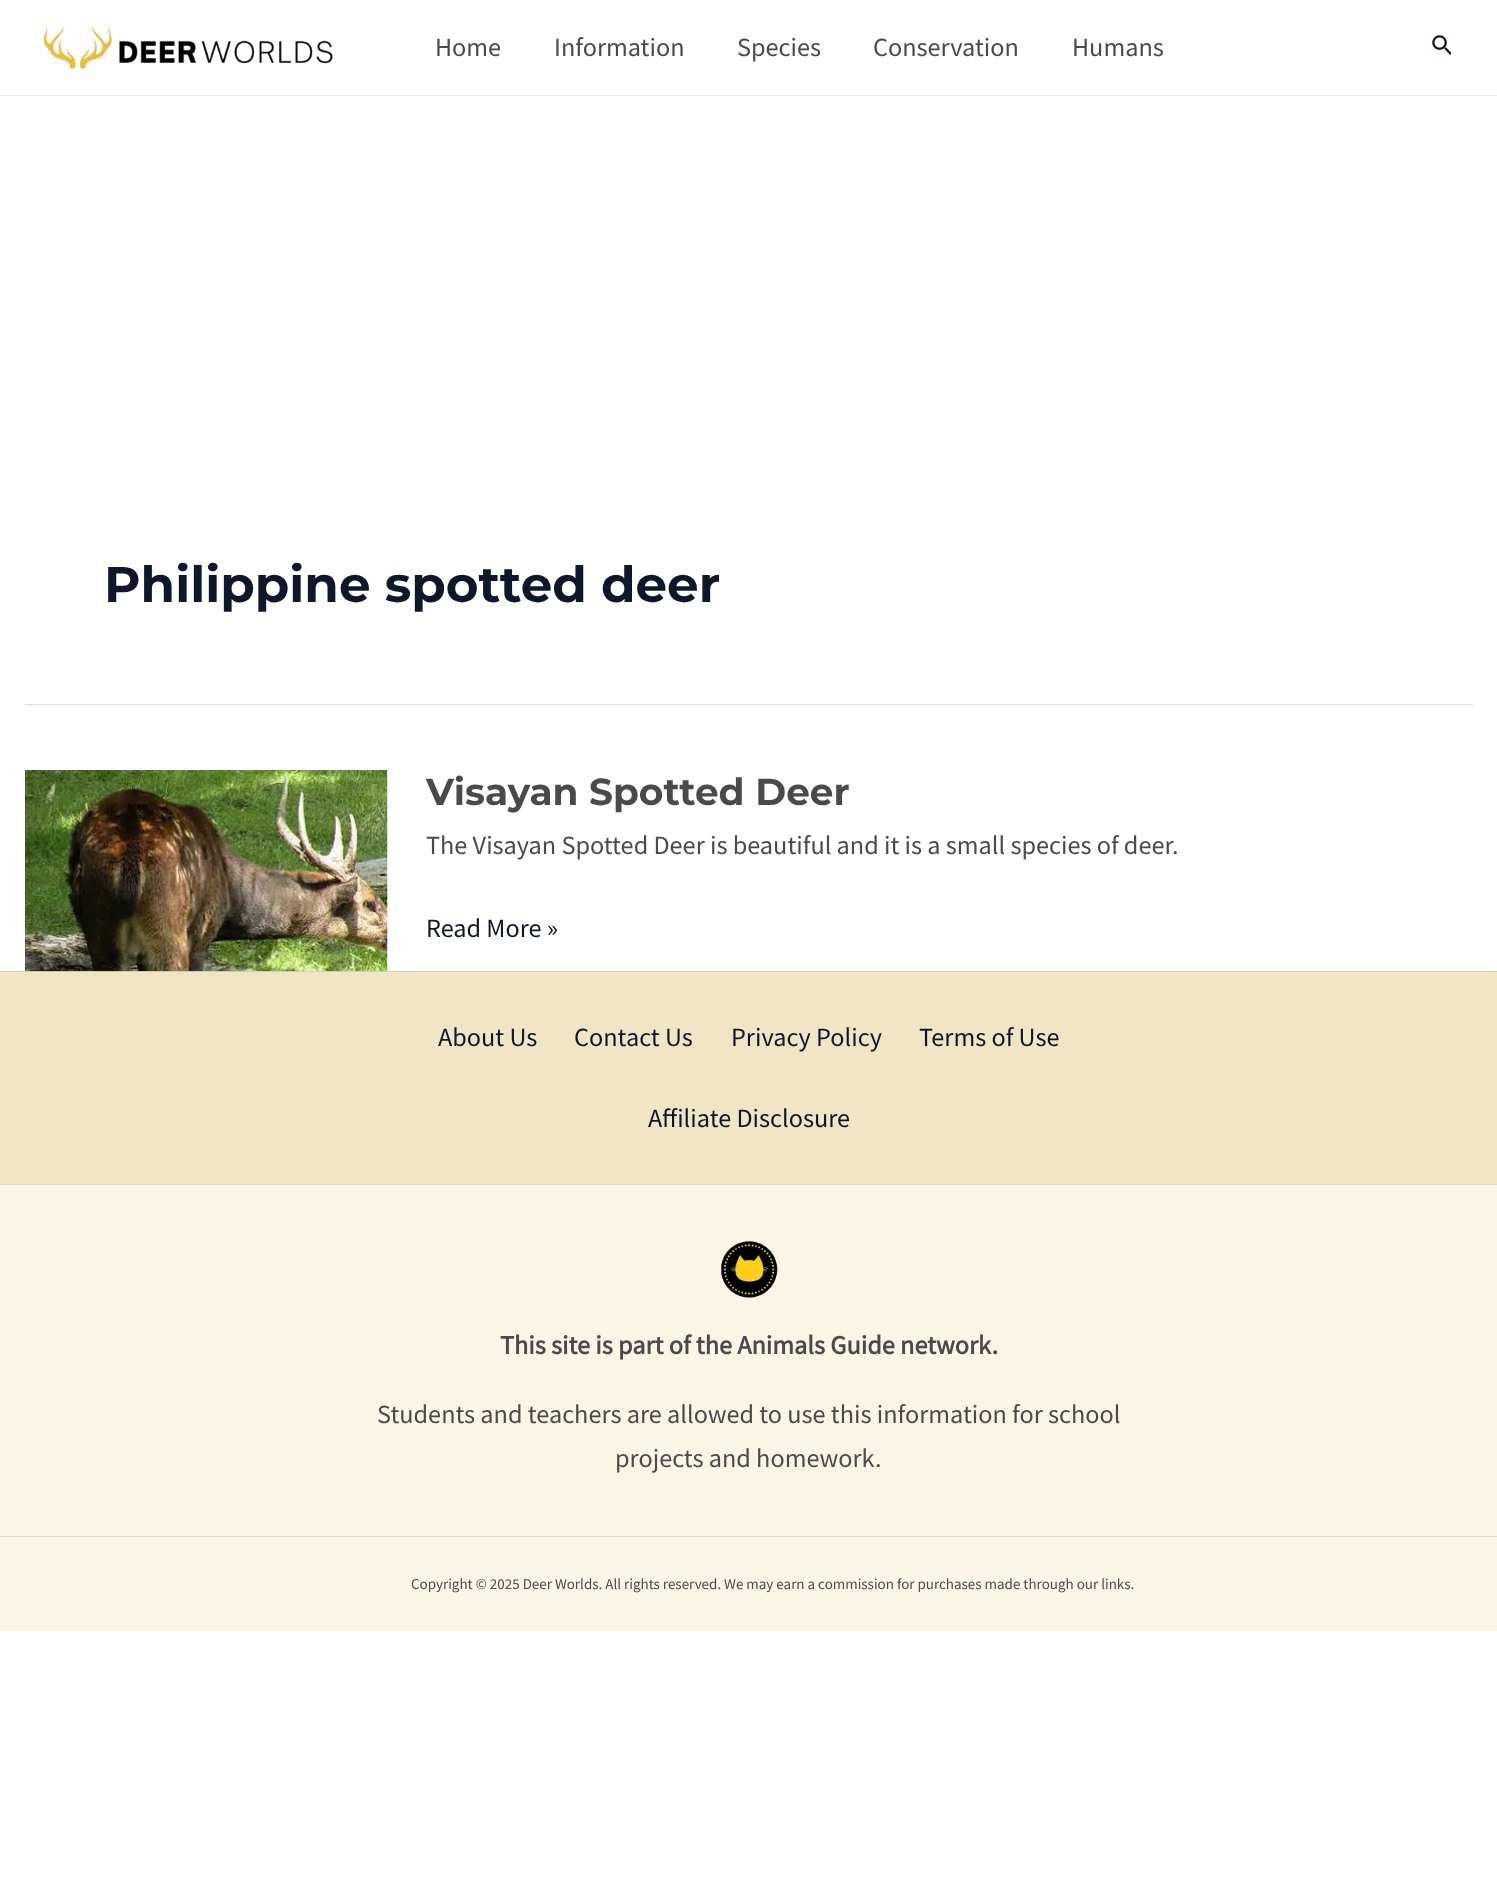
<!DOCTYPE html>
<meta charset="utf-8">
<style>body { margin: 0 } canvas { display: block }</style>
<canvas id="canvas" width="1497" height="1898"></canvas>
<script type="module">
  const canvas = document.getElementById("canvas");
  const ctx = canvas.getContext("2d");
  ctx.miterLimit = 4;
  ctx.fontKerning = "normal";
  async function loadImage(src) {
    const img = new Image();
    img.src = src;
    await img.decode();
    return img;
  }

  ctx.fillStyle = "#ffffff";
  ctx.fillRect(0, 0, 1497, 1898);
  ctx.fillStyle = "#eaeaea";
  ctx.fillRect(0, 95, 1497, 1);
  ctx.drawImage(await loadImage("img1.png"), 43, 26, 290, 43);
  ctx.font = "26.25px Source Sans Pro";
  ctx.fillStyle = "#4a4a4a";
  ctx.fillText("Home", 435, 56);
  ctx.fillText("Information", 554, 56);
  ctx.fillText("Species", 737, 56);
  ctx.fillText("Conservation", 873, 56);
  ctx.fillText("Humans", 1072, 56);
  ctx.drawImage(await loadImage("img2.png"), 1432, 35, 19, 20);
  ctx.fillStyle = "#dddddd";
  ctx.fillRect(25, 704, 1448, 1);
  ctx.font = "100 50px Montserrat";
  ctx.fillStyle = "#0f172a";
  ctx.fillText("Philippine spotted deer", 104, 602);
  ctx.fillStyle = "#d8cfb1";
  ctx.fillRect(0, 971, 1497, 1);
  ctx.drawImage(await loadImage("img3.png"), 25, 770, 363, 202);
  ctx.font = "100 37.5px Montserrat";
  ctx.fillStyle = "#4a4a4a";
  ctx.fillText("Visayan Spotted Deer", 426, 805);
  ctx.font = "26.25px Source Sans Pro";
  ctx.fillText("The Visayan Spotted Deer is beautiful and it is a small species of deer.", 426, 854);
  ctx.fillStyle = "#0f172a";
  ctx.fillText("Read More »", 426, 937);
  ctx.fillStyle = "#faf5e5";
  ctx.fillRect(0, 1185, 1497, 446);
  ctx.fillStyle = "#f0e6c5";
  ctx.fillRect(0, 972, 1497, 212);
  ctx.fillStyle = "#0f172a";
  ctx.fillText("About Us", 438, 1046);
  ctx.fillText("Contact Us", 574, 1046);
  ctx.fillText("Privacy Policy", 731, 1046);
  ctx.fillText("Terms of Use", 919, 1046);
  ctx.fillText("Affiliate Disclosure", 648, 1127);
  ctx.fillStyle = "#e1ddce";
  ctx.fillRect(0, 1184, 1497, 1);
  ctx.drawImage(await loadImage("img4.png"), 721, 1241, 57, 57);
  ctx.font = "bold 26.25px Source Sans Pro";
  ctx.fillStyle = "#4a4a4a";
  ctx.fillText("This site is part of the Animals Guide network.", 500, 1354);
  ctx.font = "26.25px Source Sans Pro";
  ctx.fillText("Students and teachers are allowed to use this information for school", 377, 1423);
  ctx.fillText("projects and homework.", 615, 1467);
  ctx.fillStyle = "#e1ddce";
  ctx.fillRect(0, 1536, 1497, 1);
  ctx.font = "15px Source Sans Pro";
  ctx.fillStyle = "#4a4a4a";
  ctx.fillText("Copyright © 2025 Deer Worlds. All rights reserved. We may earn a commission for purchases made through our links.", 411, 1589);
</script>
